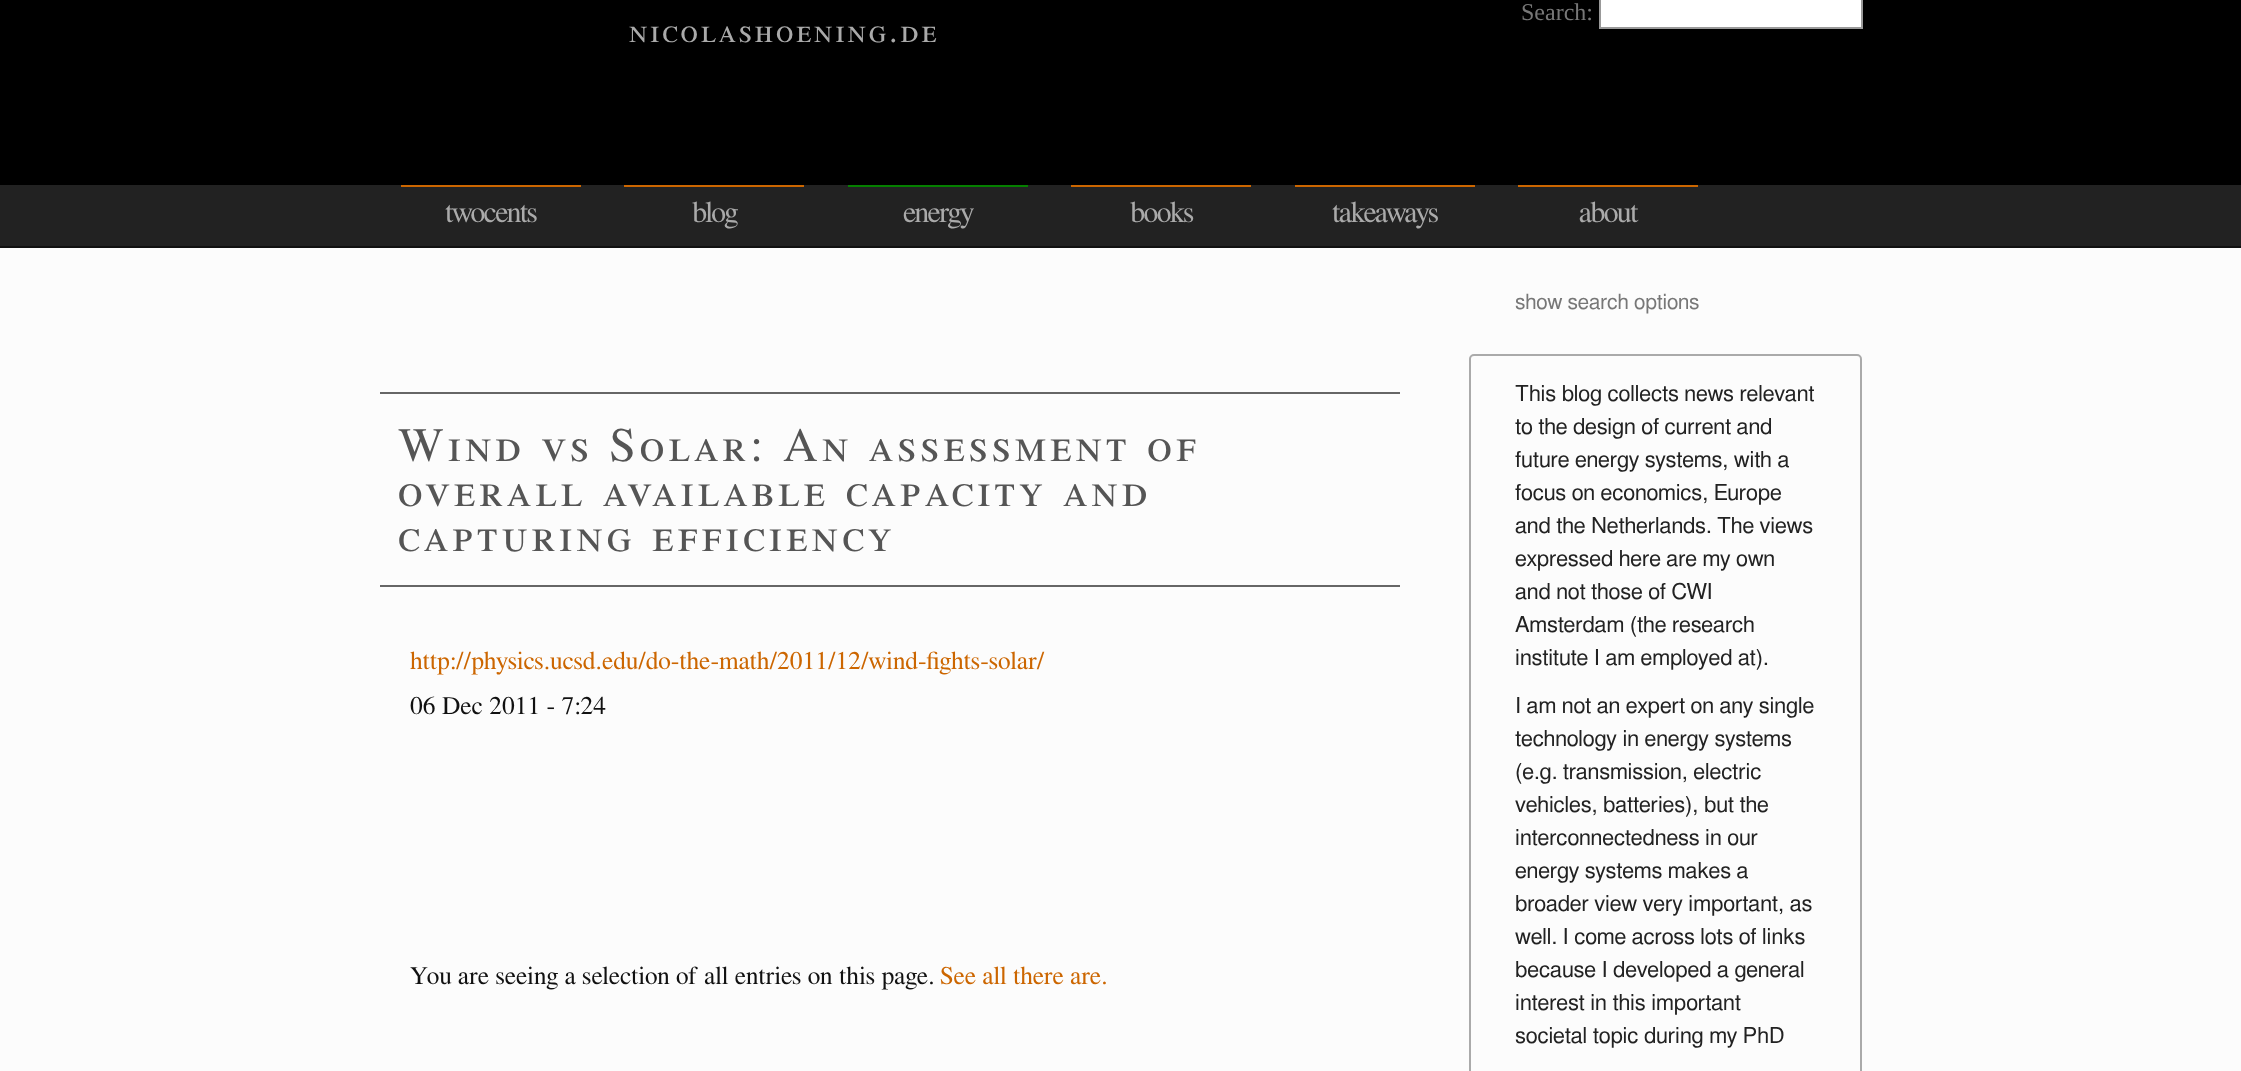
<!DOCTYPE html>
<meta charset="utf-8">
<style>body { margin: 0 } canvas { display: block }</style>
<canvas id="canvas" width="2241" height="1071"></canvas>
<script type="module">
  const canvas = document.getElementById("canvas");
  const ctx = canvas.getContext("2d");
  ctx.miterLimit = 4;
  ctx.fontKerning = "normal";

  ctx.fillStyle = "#fcfcfc";
  ctx.fillRect(0, 0, 2241, 1071);
  ctx.fillStyle = "#000000";
  ctx.fillRect(0, 0, 2241, 185);
  ctx.font = "24px Liberation Serif";
  ctx.fillStyle = "#777777";
  ctx.fillText("Search:", 1521, 20);
  ctx.fillStyle = "#ffffff";
  ctx.beginPath();
  ctx.rect(1600, -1, 262, 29);
  ctx.fill();
  ctx.strokeStyle = "#999999";
  ctx.lineWidth = 2;
  ctx.stroke();
  ctx.letterSpacing = "3px";
  ctx.font = "34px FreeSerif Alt";
  ctx.fillStyle = "#aaaaaa";
  ctx.fillText("nicolashoening.de", 629, 42);
  ctx.fillStyle = "#222222";
  ctx.fillRect(0, 185, 2241, 61);
  ctx.fillStyle = "#111111";
  ctx.fillRect(0, 246, 2241, 2);
  ctx.fillStyle = "#cc6600";
  ctx.fillRect(401, 185, 180, 2);
  ctx.letterSpacing = "-1.5px";
  ctx.font = "30px FreeSerif";
  ctx.fillStyle = "#aaaaaa";
  ctx.fillText("twocents", 445, 222);
  ctx.fillStyle = "#cc6600";
  ctx.fillRect(624, 185, 180, 2);
  ctx.fillStyle = "#aaaaaa";
  ctx.fillText("blog", 692, 222);
  ctx.fillStyle = "#058000";
  ctx.fillRect(848, 185, 180, 2);
  ctx.fillStyle = "#aaaaaa";
  ctx.fillText("energy", 903, 222);
  ctx.fillStyle = "#cc6600";
  ctx.fillRect(1071, 185, 180, 2);
  ctx.fillStyle = "#aaaaaa";
  ctx.fillText("books", 1130, 222);
  ctx.fillStyle = "#cc6600";
  ctx.fillRect(1295, 185, 180, 2);
  ctx.fillStyle = "#aaaaaa";
  ctx.fillText("takeaways", 1332, 222);
  ctx.fillStyle = "#cc6600";
  ctx.fillRect(1518, 185, 180, 2);
  ctx.fillStyle = "#aaaaaa";
  ctx.fillText("about", 1579, 222);
  ctx.letterSpacing = "0px";
  ctx.font = "21px FreeSans";
  ctx.fillStyle = "#777777";
  ctx.fillText("show search options", 1515, 309);
  ctx.fillStyle = "#666666";
  ctx.fillRect(380, 392, 1020, 2);
  ctx.fillRect(380, 585, 1020, 2);
  ctx.letterSpacing = "4.5px";
  ctx.font = "48px FreeSerif Alt";
  ctx.fillStyle = "#555555";
  ctx.fillText("Wind vs Solar: An assessment of", 398, 461);
  ctx.fillText("overall available capacity and", 398, 506);
  ctx.fillText("capturing efficiency", 398, 551);
  ctx.letterSpacing = "0px";
  ctx.font = "25.5px FreeSerif";
  ctx.fillStyle = "#cc6600";
  ctx.fillText("http://physics.ucsd.edu/do-the-math/2011/12/wind-fights-solar/", 410, 669);
  ctx.fillStyle = "#111111";
  ctx.fillText("06 Dec 2011 - 7:24", 410, 714);
  ctx.fillText("You are seeing a selection of all entries on this page.", 410, 984);
  ctx.fillStyle = "#cc6600";
  ctx.fillText("See all there are.", 940, 984);
  ctx.beginPath();
  ctx.roundRect(1470, 355, 391, 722, 4);
  ctx.strokeStyle = "#aaaaaa";
  ctx.stroke();
  ctx.font = "22px FreeSans";
  ctx.fillStyle = "#222222";
  ctx.fillText("This blog collects news relevant", 1515, 401);
  ctx.fillText("to the design of current and", 1515, 434);
  ctx.fillText("future energy systems, with a", 1515, 467);
  ctx.fillText("focus on economics, Europe", 1515, 500);
  ctx.fillText("and the Netherlands. The views", 1515, 533);
  ctx.fillText("expressed here are my own", 1515, 566);
  ctx.fillText("and not those of CWI", 1515, 599);
  ctx.fillText("Amsterdam (the research", 1515, 632);
  ctx.fillText("institute I am employed at).", 1515, 665);
  ctx.fillText("I am not an expert on any single", 1515, 713);
  ctx.fillText("technology in energy systems", 1515, 746);
  ctx.fillText("(e.g. transmission, electric", 1515, 779);
  ctx.fillText("vehicles, batteries), but the", 1515, 812);
  ctx.fillText("interconnectedness in our", 1515, 845);
  ctx.fillText("energy systems makes a", 1515, 878);
  ctx.fillText("broader view very important, as", 1515, 911);
  ctx.fillText("well. I come across lots of links", 1515, 944);
  ctx.fillText("because I developed a general", 1515, 977);
  ctx.fillText("interest in this important", 1515, 1010);
  ctx.fillText("societal topic during my PhD", 1515, 1043);
</script>
